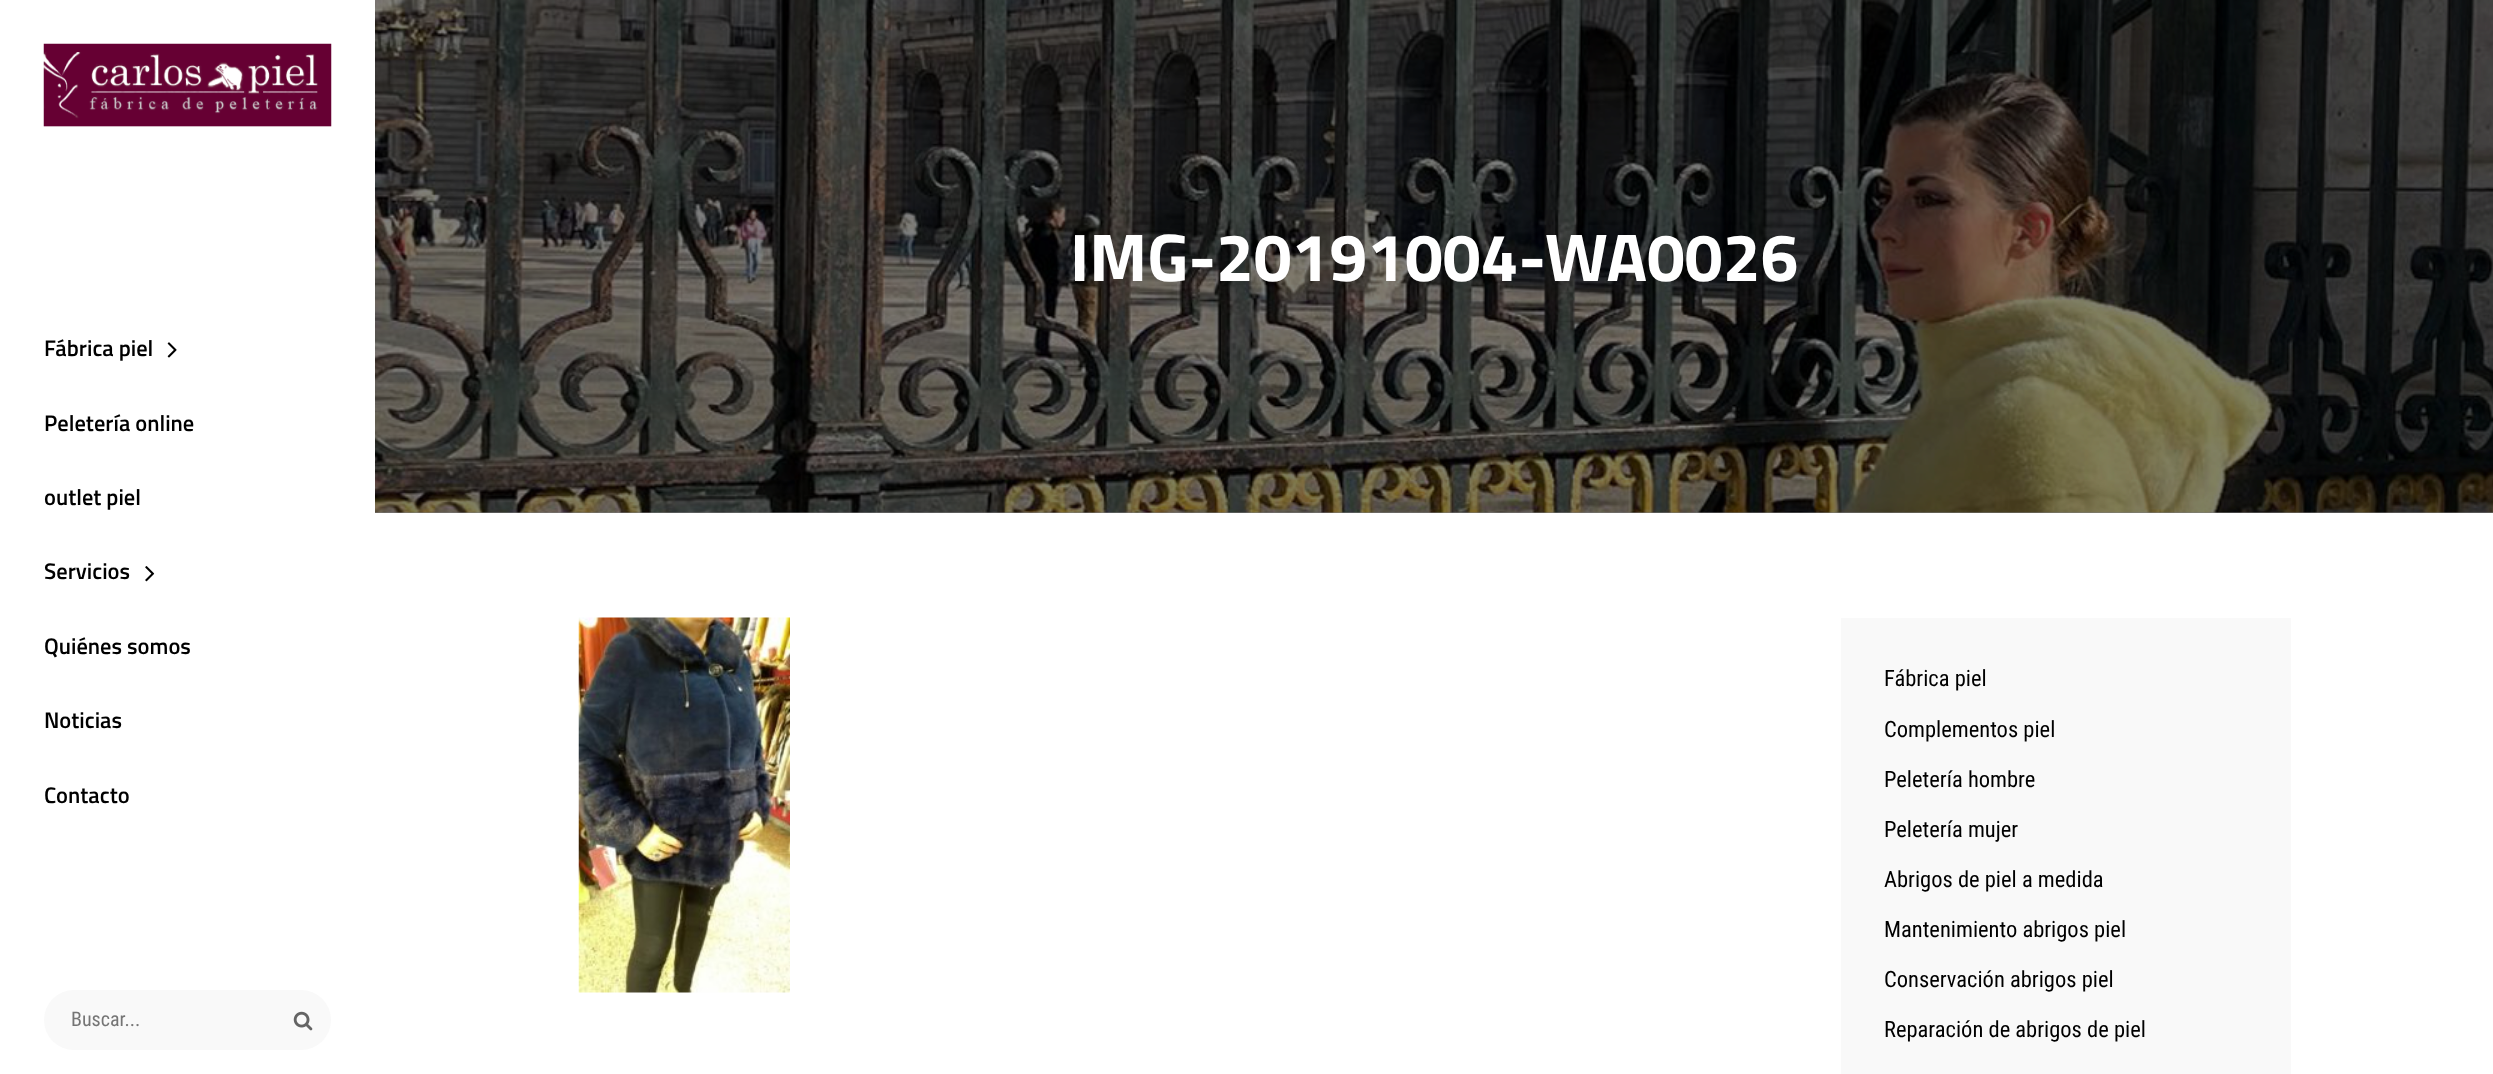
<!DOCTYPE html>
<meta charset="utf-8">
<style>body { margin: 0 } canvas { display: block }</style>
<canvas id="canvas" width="2493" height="1074"></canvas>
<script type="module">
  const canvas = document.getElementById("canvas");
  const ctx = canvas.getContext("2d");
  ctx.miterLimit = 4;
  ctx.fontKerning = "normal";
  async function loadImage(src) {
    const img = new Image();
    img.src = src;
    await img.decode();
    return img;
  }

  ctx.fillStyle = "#ffffff";
  ctx.fillRect(0, 0, 2493, 1074);
  ctx.drawImage(await loadImage("img1.png"), 43, 43, 289, 84);
  ctx.font = "600 22.5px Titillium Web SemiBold";
  ctx.fillStyle = "#000000";
  ctx.fillText("Fábrica piel", 44, 356);
  ctx.drawImage(await loadImage("img2.png"), 167, 342, 10, 16);
  ctx.fillText("Peletería online", 44, 431);
  ctx.fillText("outlet piel", 44, 505);
  ctx.fillText("Servicios", 44, 579);
  ctx.drawImage(await loadImage("img3.png"), 145, 566, 10, 16);
  ctx.fillText("Quiénes somos", 44, 654);
  ctx.fillText("Noticias", 44, 728);
  ctx.fillText("Contacto", 44, 803);
  ctx.fillStyle = "#f9f9f9";
  ctx.beginPath();
  ctx.roundRect(44, 990, 287, 60, 30);
  ctx.fill();
  ctx.font = "20px Roboto Condensed";
  ctx.fillStyle = "#757575";
  ctx.fillText("Buscar...", 71, 1026);
  ctx.drawImage(await loadImage("img4.png"), 293, 1011, 20, 20);
  ctx.fillStyle = "#7d7d7d";
  ctx.fillRect(375, 512, 2118, 1);
  ctx.drawImage(await loadImage("img5.png"), 375, 0, 2118, 513);
  ctx.font = "bold 67.5px Titillium Web";
  ctx.fillStyle = "#ffffff";
  ctx.fillText("IMG-20191004-WA0026", 1070, 281);
  ctx.drawImage(await loadImage("img6.png"), 578, 617, 212, 376);
  ctx.fillStyle = "#f9f9f9";
  ctx.fillRect(1841, 618, 450, 456);
  ctx.font = "22.5px Roboto Condensed";
  ctx.fillStyle = "#000000";
  ctx.fillText("Fábrica piel", 1884, 686);
  ctx.fillText("Complementos piel", 1884, 737);
  ctx.fillText("Peletería hombre", 1884, 787);
  ctx.fillText("Peletería mujer", 1884, 837);
  ctx.fillText("Abrigos de piel a medida", 1884, 887);
  ctx.fillText("Mantenimiento abrigos piel", 1884, 937);
  ctx.fillText("Conservación abrigos piel", 1884, 987);
  ctx.fillText("Reparación de abrigos de piel", 1884, 1037);
</script>
